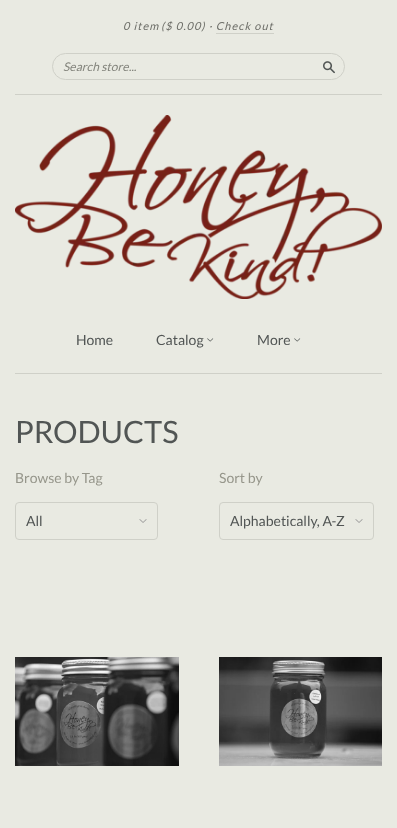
<!DOCTYPE html>
<meta charset="utf-8">
<style>body { margin: 0 } canvas { display: block }</style>
<canvas id="canvas" width="397" height="828"></canvas>
<script type="module">
  const canvas = document.getElementById("canvas");
  const ctx = canvas.getContext("2d");
  ctx.miterLimit = 4;
  ctx.fontKerning = "normal";
  async function loadImage(src) {
    const img = new Image();
    img.src = src;
    await img.decode();
    return img;
  }

  ctx.fillStyle = "#e9eae2";
  ctx.fillRect(0, 0, 397, 828);
  ctx.fillStyle = "#cfd0c8";
  ctx.fillRect(15, 373, 367, 1);
  ctx.fillRect(15, 94, 367, 1);
  ctx.letterSpacing = "1px";
  ctx.font = "italic 11px Lato";
  ctx.fillStyle = "#6d6e68";
  ctx.fillText("0 item", 123, 30);
  ctx.fillText("($ 0.00) · Check out", 161, 30);
  ctx.fillStyle = "#cfd0c8";
  ctx.fillRect(216, 33, 58, 1);
  ctx.beginPath();
  ctx.roundRect(52.5, 53.5, 292, 26, 13);
  ctx.strokeStyle = "#cfd0c8";
  ctx.stroke();
  ctx.letterSpacing = "0px";
  ctx.font = "italic 12px Lato";
  ctx.fillStyle = "#84857d";
  ctx.fillText("Search store...", 63, 71);
  ctx.drawImage(await loadImage("img1.png"), 323, 61, 12, 13);
  ctx.drawImage(await loadImage("img2.png"), 15, 115, 367, 184);
  ctx.font = "14px Lato";
  ctx.fillStyle = "#515554";
  ctx.fillText("Home", 76, 345);
  ctx.fillText("Catalog", 156, 345);
  ctx.drawImage(await loadImage("img3.png"), 207, 338, 7, 4);
  ctx.fillText("More", 257, 345);
  ctx.drawImage(await loadImage("img3.png"), 294, 338, 7, 4);
  ctx.font = "30.75px Lato";
  ctx.fillText("PRODUCTS", 15, 443);
  ctx.font = "14px Lato";
  ctx.fillStyle = "#96968b";
  ctx.fillText("Browse by Tag", 15, 483);
  ctx.drawImage(await loadImage("img4.png"), 139, 519, 8, 4);
  ctx.beginPath();
  ctx.roundRect(15.5, 502.5, 142, 37, 3.5);
  ctx.stroke();
  ctx.fillStyle = "#515554";
  ctx.fillText("All", 26, 526);
  ctx.fillStyle = "#96968b";
  ctx.fillText("Sort by", 219, 483);
  ctx.drawImage(await loadImage("img4.png"), 355, 519, 8, 4);
  ctx.beginPath();
  ctx.roundRect(219.5, 502.5, 154, 37, 3.5);
  ctx.stroke();
  ctx.fillStyle = "#515554";
  ctx.fillText("Alphabetically, A-Z", 230, 526);
  ctx.drawImage(await loadImage("img5.png"), 15, 657, 164, 109);
  ctx.drawImage(await loadImage("img6.png"), 219, 657, 163, 109);
</script>
